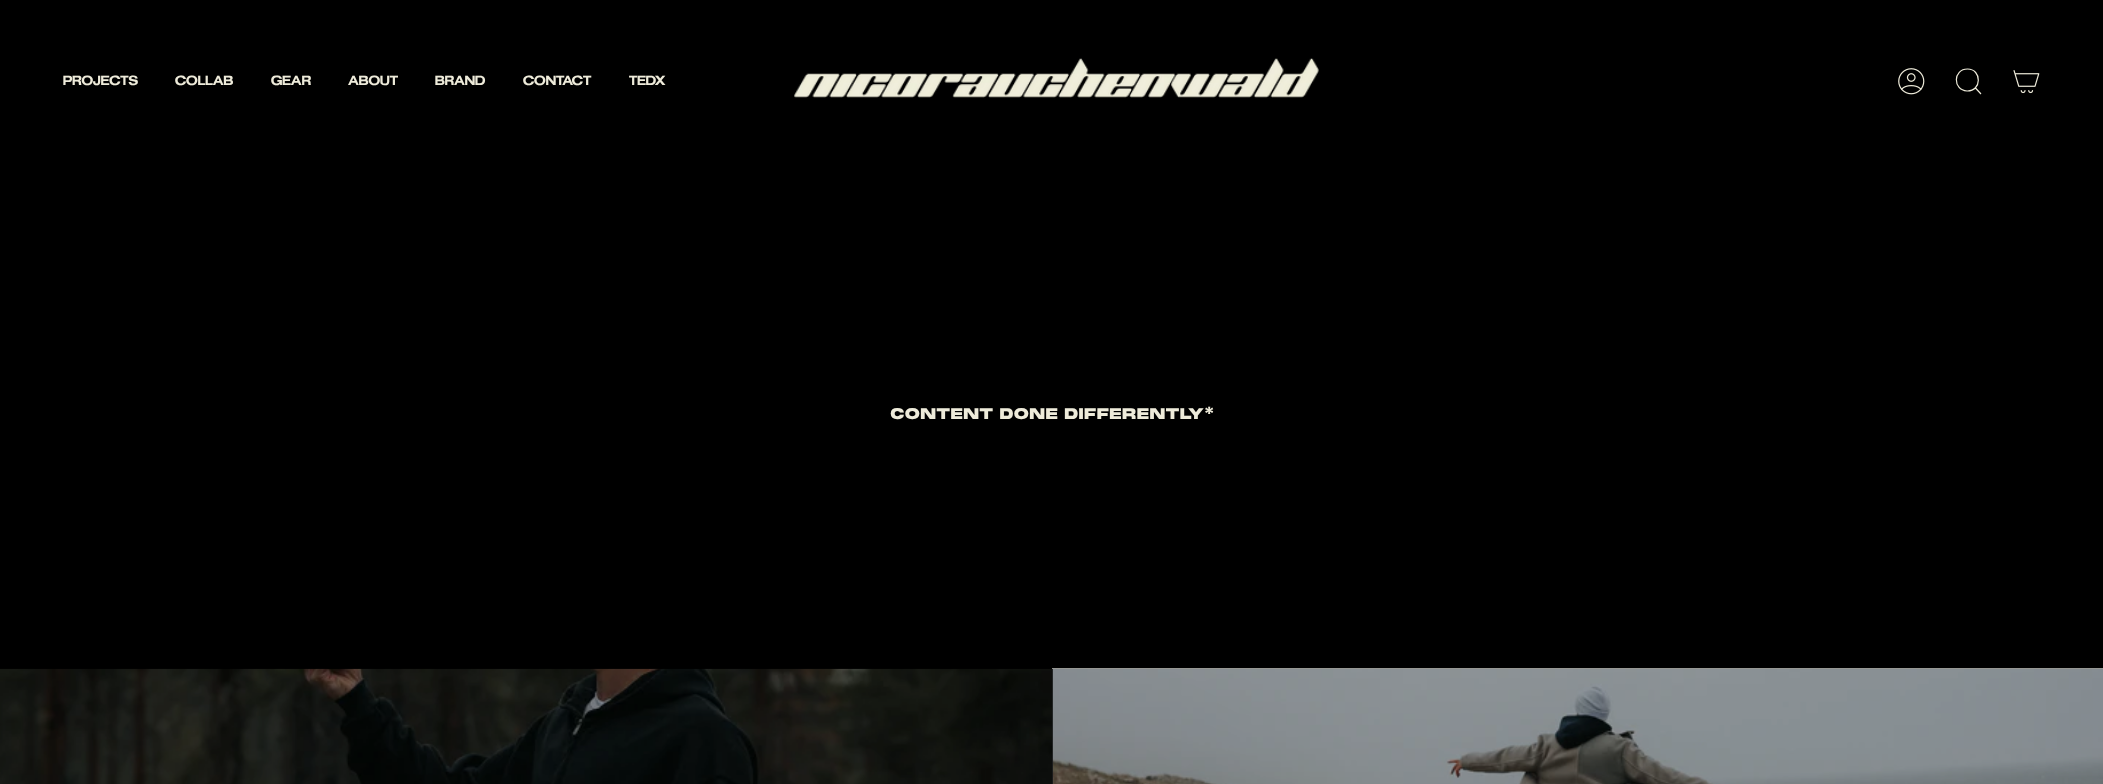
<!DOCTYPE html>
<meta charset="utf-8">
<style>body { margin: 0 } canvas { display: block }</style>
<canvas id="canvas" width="2103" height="784"></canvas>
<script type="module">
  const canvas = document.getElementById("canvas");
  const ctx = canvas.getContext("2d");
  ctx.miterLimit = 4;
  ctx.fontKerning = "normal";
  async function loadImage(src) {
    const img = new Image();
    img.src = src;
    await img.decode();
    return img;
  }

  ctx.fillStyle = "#000000";
  ctx.fillRect(0, 0, 2103, 784);
  ctx.font = "500 14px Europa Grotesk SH";
  ctx.fillStyle = "#eeebda";
  ctx.fillText("PROJECTS", 63, 85);
  ctx.fillText("COLLAB", 175, 85);
  ctx.fillText("GEAR", 271, 85);
  ctx.fillText("ABOUT", 348, 85);
  ctx.fillText("BRAND", 435, 85);
  ctx.fillText("CONTACT", 523, 85);
  ctx.fillText("TEDX", 629, 85);
  ctx.drawImage(await loadImage("img1.png"), 794, 58, 525, 40);
  ctx.drawImage(await loadImage("img2.png"), 1898, 68, 27, 27);
  ctx.beginPath();
  ctx.moveTo(1967.5, 69);
  ctx.bezierCurveTo(1982, 69, 1982, 91.5, 1967, 91);
  ctx.bezierCurveTo(1952.5, 90, 1953, 69, 1967.5, 69);
  ctx.closePath();
  ctx.moveTo(1975, 87.5);
  ctx.lineTo(1981, 94);
  ctx.strokeStyle = "#eeebda";
  ctx.lineWidth = 1.2;
  ctx.stroke();
  ctx.drawImage(await loadImage("img3.png"), 2013, 70, 27, 24);
  ctx.font = "900 15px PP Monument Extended";
  ctx.fillText("CONTENT DONE DIFFERENTLY*", 890, 419);
  ctx.fillStyle = "#969793";
  ctx.fillRect(1052, 668, 1051, 1);
  ctx.drawImage(await loadImage("img4.png"), 0, 668, 1053, 116);
  ctx.drawImage(await loadImage("img5.png"), 1052, 669, 1051, 115);
  ctx.fillStyle = "rgba(0, 0, 0, 0.3)";
  ctx.fillRect(0, 669, 1053, 115);
</script>
